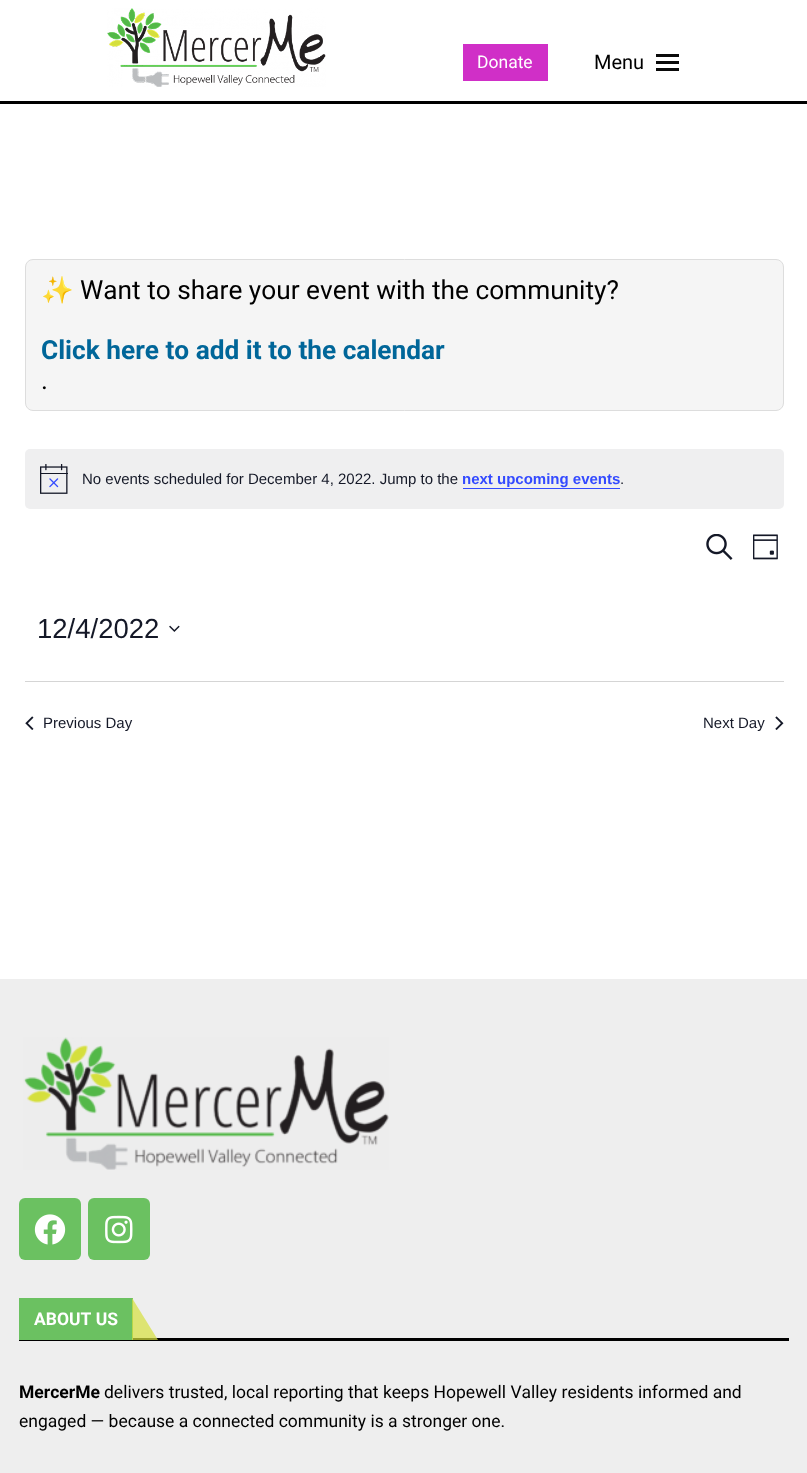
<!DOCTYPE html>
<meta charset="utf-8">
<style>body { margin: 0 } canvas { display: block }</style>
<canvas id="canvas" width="807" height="1473"></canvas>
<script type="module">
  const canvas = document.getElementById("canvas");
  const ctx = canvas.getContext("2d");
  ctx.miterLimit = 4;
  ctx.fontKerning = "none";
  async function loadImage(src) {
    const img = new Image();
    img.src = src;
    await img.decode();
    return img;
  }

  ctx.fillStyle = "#ffffff";
  ctx.fillRect(0, 0, 807, 1473);
  ctx.fillStyle = "#000000";
  ctx.fillRect(0, 101, 807, 3);
  ctx.drawImage(await loadImage("img1.png"), 107, 8, 219, 79);
  ctx.fillStyle = "#d02fc7";
  ctx.fillRect(463, 44, 85, 37);
  ctx.font = "17.5px Roboto";
  ctx.fillStyle = "#ffffff";
  ctx.fillText("Donate", 477, 68);
  ctx.font = "20px Roboto";
  ctx.fillStyle = "#000000";
  ctx.fillText("Menu", 594, 69);
  ctx.fillStyle = "#0a0a0a";
  ctx.fillRect(656, 54, 23, 3);
  ctx.fillRect(656, 61, 23, 3);
  ctx.fillRect(656, 68, 23, 3);
  ctx.fillStyle = "#f5f5f5";
  ctx.beginPath();
  ctx.roundRect(25.5, 259.5, 758, 151, 7.5);
  ctx.fill();
  ctx.strokeStyle = "#dddddd";
  ctx.stroke();
  ctx.font = "26.25px Noto Color Emoji";
  ctx.fillStyle = "#000000";
  ctx.fillText("✨", 41, 299);
  ctx.font = "26.25px Roboto";
  ctx.fillText("Want to share your event with the community?", 80, 299);
  ctx.font = "bold 26.25px Roboto";
  ctx.fillStyle = "#006699";
  ctx.fillText("Click here to add it to the calendar", 41, 359);
  ctx.font = "26.25px Roboto";
  ctx.fillStyle = "#000000";
  ctx.fillText(".", 41, 389);
  ctx.fillStyle = "#efeff0";
  ctx.beginPath();
  ctx.roundRect(25, 449, 759, 60, 5);
  ctx.fill();
  ctx.drawImage(await loadImage("img2.png"), 40, 464, 28, 30);
  ctx.font = "15px Liberation Sans";
  ctx.fillStyle = "#141827";
  ctx.fillText("No events scheduled for December 4, 2022. Jump to the", 82, 484);
  ctx.font = "bold 15px Liberation Sans";
  ctx.fillStyle = "#334aff";
  ctx.fillText("next upcoming events", 462, 484);
  ctx.fillRect(463, 488, 157, 1);
  ctx.font = "15px Liberation Sans";
  ctx.fillStyle = "#141827";
  ctx.fillText(".", 620, 484);
  ctx.drawImage(await loadImage("img3.png"), 706, 534, 27, 26);
  ctx.drawImage(await loadImage("img4.png"), 753, 534, 25, 26);
  ctx.font = "27.5px Liberation Sans";
  ctx.fillText("12/4/2022", 37, 638);
  ctx.drawImage(await loadImage("img5.png"), 169, 625, 11, 7);
  ctx.fillStyle = "#d5d5d5";
  ctx.fillRect(25, 681, 759, 1);
  ctx.drawImage(await loadImage("img6.png"), 25, 716, 9, 14);
  ctx.font = "15px Liberation Sans";
  ctx.fillStyle = "#141827";
  ctx.fillText("Previous Day", 43, 728);
  ctx.fillText("Next Day", 703, 728);
  ctx.drawImage(await loadImage("img7.png"), 775, 716, 9, 14);
  ctx.fillStyle = "#eeeeee";
  ctx.fillRect(0, 979, 807, 494);
  ctx.drawImage(await loadImage("img8.png"), 23, 1037, 366, 133);
  ctx.fillStyle = "#6bc161";
  ctx.beginPath();
  ctx.roundRect(19, 1198, 62, 62, 6);
  ctx.fill();
  ctx.drawImage(await loadImage("img9.png"), 34, 1214, 32, 31);
  ctx.beginPath();
  ctx.roundRect(88, 1198, 62, 62, 6);
  ctx.fill();
  ctx.drawImage(await loadImage("img10.png"), 105, 1215, 28, 29);
  ctx.fillStyle = "#000000";
  ctx.fillRect(19, 1338, 770, 3);
  ctx.fillStyle = "#6bc161";
  ctx.fillRect(19, 1298, 114, 42);
  ctx.font = "bold 17.5px Roboto";
  ctx.fillStyle = "#ffffff";
  ctx.fillText("ABOUT US", 34, 1325);
  ctx.fillStyle = "rgba(213, 223, 61, 0.7)";
  ctx.beginPath();
  ctx.moveTo(158, 1340);
  ctx.lineTo(132, 1340);
  ctx.lineTo(132, 1298);
  ctx.closePath();
  ctx.fill();
  ctx.fillStyle = "#000000";
  ctx.fillText("MercerMe", 19, 1398);
  ctx.font = "17.5px Roboto";
  ctx.fillText("delivers trusted, local reporting that keeps Hopewell Valley residents informed and", 104, 1398);
  ctx.fillText("engaged — because a connected community is a stronger one.", 19, 1427);
</script>
